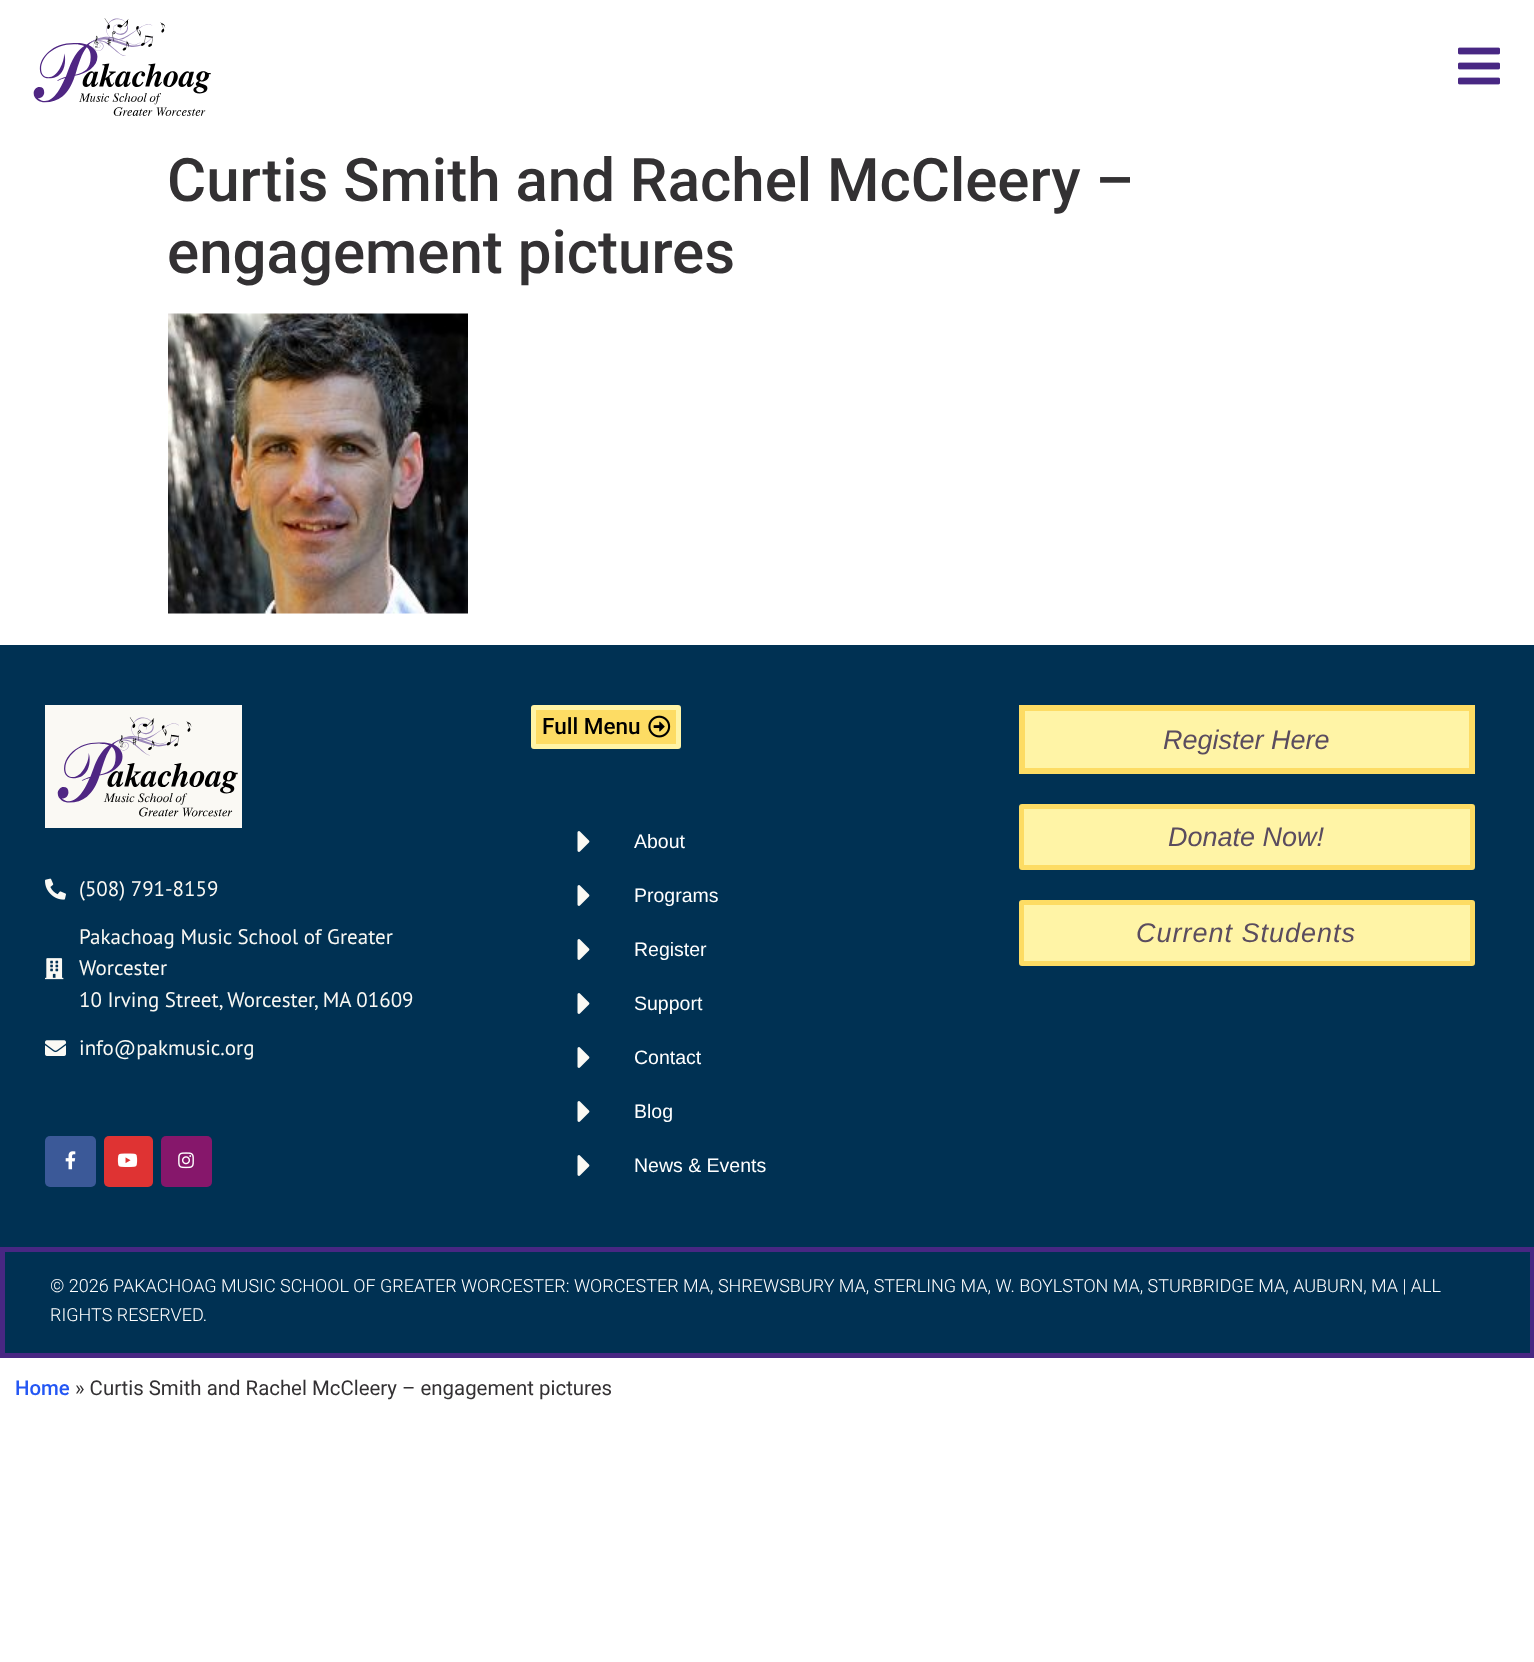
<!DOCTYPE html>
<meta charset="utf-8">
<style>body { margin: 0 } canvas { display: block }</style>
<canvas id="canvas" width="1534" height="1662"></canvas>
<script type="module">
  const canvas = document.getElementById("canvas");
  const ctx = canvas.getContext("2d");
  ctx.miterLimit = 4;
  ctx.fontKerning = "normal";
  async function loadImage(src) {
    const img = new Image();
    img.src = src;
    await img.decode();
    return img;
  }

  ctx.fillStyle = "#ffffff";
  ctx.fillRect(0, 0, 1534, 1662);
  ctx.drawImage(await loadImage("img1.png"), 33, 18, 178, 98);
  ctx.drawImage(await loadImage("img2.png"), 1458, 47, 42, 38);
  ctx.font = "500 60px Roboto";
  ctx.fillStyle = "#333133";
  ctx.fillText("Curtis Smith and Rachel McCleery –", 167, 201);
  ctx.fillText("engagement pictures", 167, 273);
  ctx.drawImage(await loadImage("img3.png"), 168, 313, 300, 301);
  ctx.fillStyle = "#003153";
  ctx.fillRect(0, 645, 1534, 602);
  ctx.fillStyle = "#fddc64";
  ctx.beginPath();
  ctx.roundRect(533.5, 707.5, 145, 39, 0.5);
  ctx.fill();
  ctx.strokeStyle = "#fff4a6";
  ctx.lineWidth = 5;
  ctx.stroke();
  ctx.font = "500 22.5px Roboto";
  ctx.fillStyle = "#000000";
  ctx.fillText("Full Menu", 542, 734);
  ctx.drawImage(await loadImage("img4.png"), 648, 715, 23, 23);
  ctx.drawImage(await loadImage("img5.png"), 577, 831, 13, 21);
  ctx.font = "19.5px Liberation Sans";
  ctx.fillStyle = "#ffffff";
  ctx.fillText("About", 634, 848);
  ctx.drawImage(await loadImage("img5.png"), 577, 885, 13, 21);
  ctx.fillText("Programs", 634, 902);
  ctx.drawImage(await loadImage("img5.png"), 577, 939, 13, 21);
  ctx.fillText("Register", 634, 956);
  ctx.drawImage(await loadImage("img5.png"), 577, 993, 13, 21);
  ctx.fillText("Support", 634, 1010);
  ctx.drawImage(await loadImage("img5.png"), 577, 1047, 13, 21);
  ctx.fillText("Contact", 634, 1064);
  ctx.drawImage(await loadImage("img5.png"), 577, 1101, 13, 21);
  ctx.fillText("Blog", 634, 1118);
  ctx.drawImage(await loadImage("img5.png"), 577, 1155, 13, 21);
  ctx.fillText("News & Events", 634, 1172);
  ctx.fillStyle = "#fff4a6";
  ctx.beginPath();
  ctx.rect(1022, 708, 450, 63);
  ctx.fill();
  ctx.strokeStyle = "#fddc64";
  ctx.lineWidth = 6;
  ctx.stroke();
  ctx.font = "italic 27px Liberation Sans";
  ctx.fillStyle = "#5a4c5f";
  ctx.fillText("Register Here", 1163, 749);
  ctx.fillStyle = "#fff4a6";
  ctx.beginPath();
  ctx.roundRect(1021.5, 806.5, 451, 61, 0.5);
  ctx.fill();
  ctx.lineWidth = 5;
  ctx.stroke();
  ctx.fillStyle = "#5a4c5f";
  ctx.fillText("Donate Now!", 1168, 846);
  ctx.fillStyle = "#fff4a6";
  ctx.beginPath();
  ctx.roundRect(1021.5, 902.5, 451, 61, 0.5);
  ctx.fill();
  ctx.stroke();
  ctx.letterSpacing = "1px";
  ctx.fillStyle = "#5a4c5f";
  ctx.fillText("Current Students", 1136, 942);
  ctx.fillStyle = "#faf9f4";
  ctx.fillRect(45, 705, 197, 123);
  ctx.drawImage(await loadImage("img6.png"), 57, 717, 181, 100);
  ctx.drawImage(await loadImage("img7.png"), 45, 878, 21, 22);
  ctx.letterSpacing = "0px";
  ctx.font = "21px PT Sans";
  ctx.fillText("(508) 791-8159", 79, 896);
  ctx.drawImage(await loadImage("img8.png"), 45, 958, 19, 22);
  ctx.fillText("Pakachoag Music School of Greater", 79, 944);
  ctx.fillText("Worcester", 79, 975);
  ctx.fillText("10 Irving Street, Worcester, MA 01609", 79, 1007);
  ctx.drawImage(await loadImage("img9.png"), 45, 1040, 21, 16);
  ctx.fillText("info@pakmusic.org", 79, 1055);
  ctx.fillStyle = "#3b5998";
  ctx.beginPath();
  ctx.roundRect(45, 1136, 51, 51, 5);
  ctx.fill();
  ctx.drawImage(await loadImage("img10.png"), 65, 1151, 11, 19);
  ctx.fillStyle = "#df3333";
  ctx.beginPath();
  ctx.roundRect(104, 1136, 49, 51, 5);
  ctx.fill();
  ctx.drawImage(await loadImage("img11.png"), 117, 1153, 21, 14);
  ctx.fillStyle = "#86176b";
  ctx.beginPath();
  ctx.roundRect(161, 1136, 51, 51, 5);
  ctx.fill();
  ctx.drawImage(await loadImage("img12.png"), 178, 1152, 16, 17);
  ctx.fillStyle = "#003153";
  ctx.beginPath();
  ctx.rect(2.5, 1249.5, 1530, 106);
  ctx.fill();
  ctx.strokeStyle = "#482783";
  ctx.stroke();
  ctx.font = "300 18px Roboto";
  ctx.fillStyle = "#ffffff";
  ctx.fillText("© 2026 PAKACHOAG MUSIC SCHOOL OF GREATER WORCESTER: WORCESTER MA, SHREWSBURY MA, STERLING MA, W. BOYLSTON MA, STURBRIDGE MA, AUBURN, MA | ALL", 50, 1292);
  ctx.fillText("RIGHTS RESERVED.", 50, 1321);
  ctx.font = "500 20.4px Roboto";
  ctx.fillStyle = "#2457f4";
  ctx.fillText("Home", 15, 1395);
  ctx.font = "20.4px Roboto";
  ctx.fillStyle = "#333133";
  ctx.fillText("» Curtis Smith and Rachel McCleery – engagement pictures", 75, 1395);
</script>
